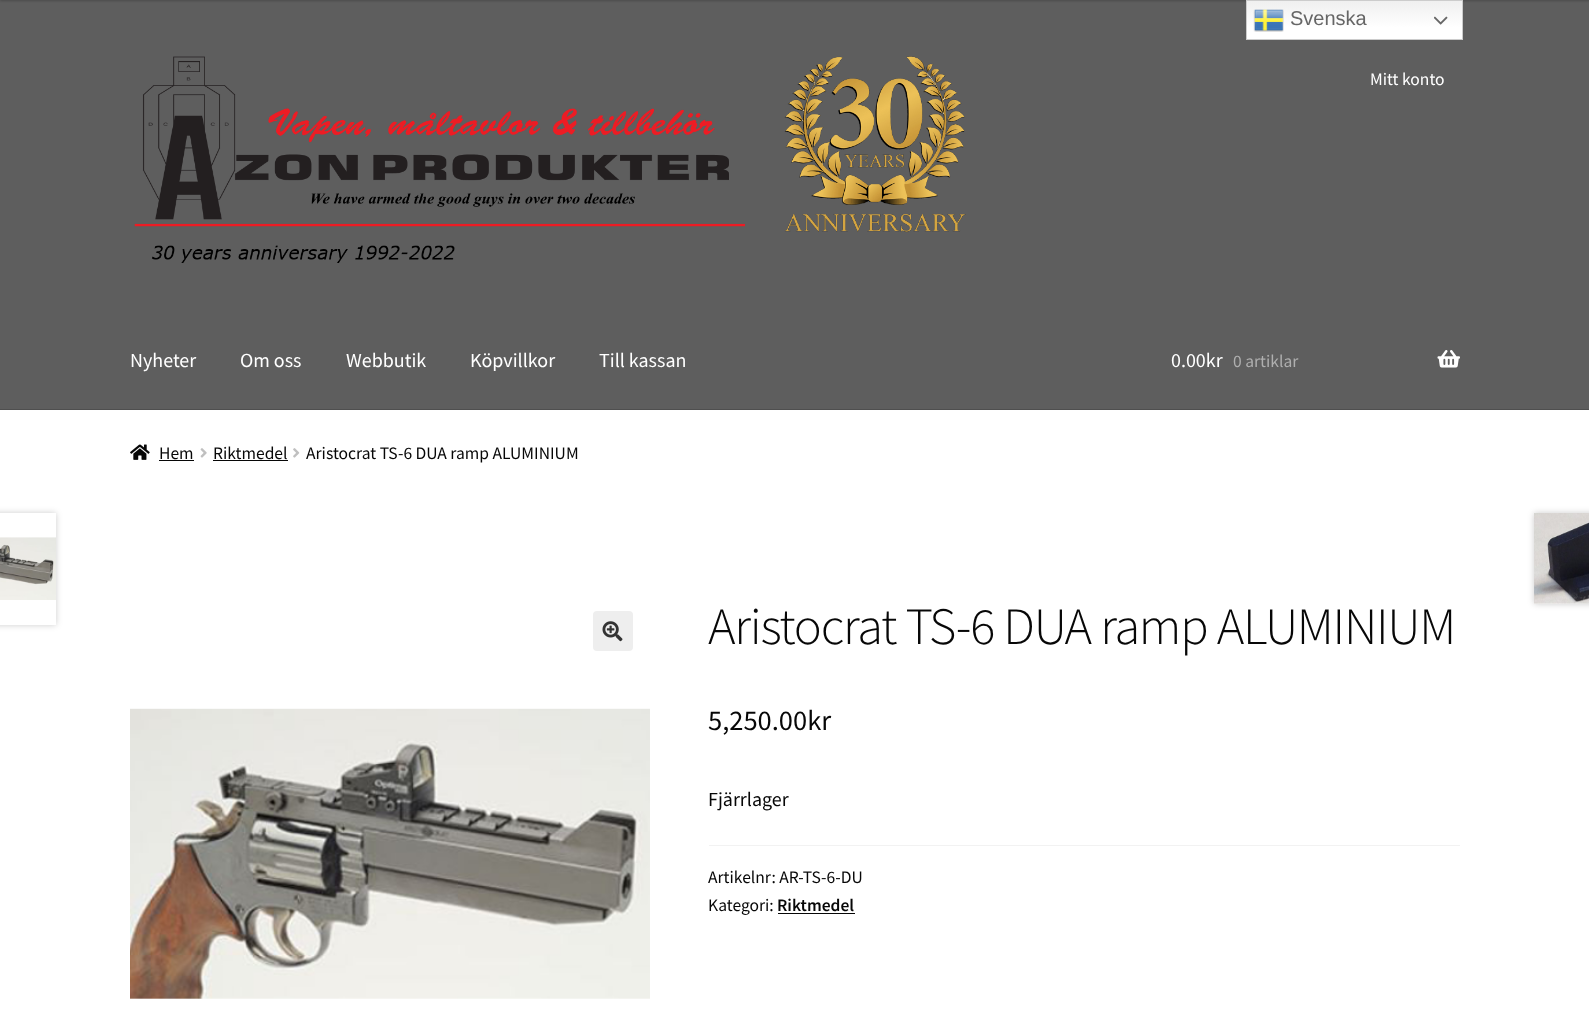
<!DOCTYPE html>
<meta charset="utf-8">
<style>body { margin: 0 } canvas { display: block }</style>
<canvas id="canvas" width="1589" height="1024"></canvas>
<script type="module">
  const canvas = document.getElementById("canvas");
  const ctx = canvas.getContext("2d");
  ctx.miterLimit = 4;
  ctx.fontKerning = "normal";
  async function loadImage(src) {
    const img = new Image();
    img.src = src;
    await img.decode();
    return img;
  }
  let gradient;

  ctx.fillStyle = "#ffffff";
  ctx.fillRect(0, 0, 1589, 1024);
  ctx.fillStyle = "#5e5e5e";
  ctx.fillRect(0, 0, 1589, 409);
  ctx.fillStyle = "rgba(0, 0, 0, 0.2)";
  ctx.filter = "blur(1px)";
  ctx.beginPath();
  ctx.rect(0, -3, 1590, 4);
  ctx.fill();
  ctx.filter = "none";
  gradient = ctx.createLinearGradient(1354, 0, 1354, 40);
  gradient.addColorStop(0, "#efefef");
  gradient.addColorStop(0.7, "#ffffff");
  ctx.fillStyle = gradient;
  ctx.fillRect(1247, 1, 215, 38);
  ctx.strokeStyle = "#cccccc";
  ctx.strokeRect(1246.5, 0.5, 216, 39);
  ctx.drawImage(await loadImage("img1.png"), 1253, 9, 31, 23);
  ctx.font = "20px Liberation Sans";
  ctx.fillStyle = "#666666";
  ctx.fillText("Svenska", 1290, 25);
  ctx.drawImage(await loadImage("img2.png"), 1434, 16, 14, 9);
  ctx.fillStyle = "#4f4f4f";
  ctx.fillRect(0, 409, 1589, 1);
  ctx.drawImage(await loadImage("img3.png"), 134, 56, 832, 207);
  ctx.font = "17.5px Source Sans Pro";
  ctx.fillStyle = "#ffffff";
  ctx.fillText("Mitt konto", 1370, 85);
  ctx.font = "20px Source Sans Pro";
  ctx.fillText("Nyheter", 130, 367);
  ctx.fillText("Om oss", 240, 367);
  ctx.fillText("Webbutik", 346, 367);
  ctx.fillText("Köpvillkor", 470, 367);
  ctx.fillText("Till kassan", 599, 367);
  ctx.fillText("0.00kr", 1171, 367);
  ctx.font = "17.5px Source Sans Pro";
  ctx.fillStyle = "#afafaf";
  ctx.fillText("0 artiklar", 1233, 367);
  ctx.drawImage(await loadImage("img4.png"), 1437, 350, 23, 18);
  ctx.drawImage(await loadImage("img5.png"), 130, 444, 20, 16);
  ctx.fillStyle = "#070707";
  ctx.fillText("Hem", 159, 459);
  ctx.fillRect(159, 460, 35, 1);
  ctx.drawImage(await loadImage("img6.png"), 200, 448, 7, 10);
  ctx.fillText("Riktmedel", 213, 459);
  ctx.fillRect(213, 460, 75, 1);
  ctx.drawImage(await loadImage("img7.png"), 293, 448, 7, 10);
  ctx.fillText("Aristocrat TS-6 DUA ramp ALUMINIUM", 306, 459);
  ctx.save();
  ctx.beginPath();
  ctx.moveTo(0, 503);
  ctx.lineTo(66, 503);
  ctx.lineTo(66, 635);
  ctx.lineTo(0, 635);
  ctx.closePath();
  ctx.moveTo(-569, 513);
  ctx.lineTo(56, 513);
  ctx.lineTo(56, 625);
  ctx.lineTo(-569, 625);
  ctx.closePath();
  ctx.clip("evenodd");
  ctx.fillStyle = "rgba(0, 0, 0, 0.2)";
  ctx.filter = "blur(3px)";
  ctx.beginPath();
  ctx.rect(-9, 513, 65, 112);
  ctx.fill();
  ctx.filter = "none";
  ctx.restore();
  ctx.drawImage(await loadImage("img8.png"), 0, 537, 56, 63);
  ctx.fillStyle = "rgba(0, 0, 0, 0.2)";
  ctx.filter = "blur(3px)";
  ctx.beginPath();
  ctx.rect(1534, 513, 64, 91);
  ctx.fill();
  ctx.filter = "none";
  ctx.fillStyle = "#ffffff";
  ctx.fillRect(1534, 603, 55, 1);
  ctx.drawImage(await loadImage("img9.png"), 1534, 513, 55, 91);
  ctx.fillStyle = "#eeeeee";
  ctx.beginPath();
  ctx.roundRect(593, 611, 40, 40, 4);
  ctx.fill();
  ctx.drawImage(await loadImage("img10.png"), 602, 621, 21, 21);
  ctx.drawImage(await loadImage("img11.png"), 130, 708, 520, 291);
  ctx.letterSpacing = "-1.25px";
  ctx.font = "300 52.4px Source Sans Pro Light";
  ctx.fillStyle = "#070707";
  ctx.fillText("Aristocrat TS-6 DUA ramp ALUMINIUM", 708, 644);
  ctx.letterSpacing = "0px";
  ctx.font = "28.5px Source Sans Pro";
  ctx.fillText("5,250.00kr", 708, 730);
  ctx.font = "20px Source Sans Pro";
  ctx.fillText("Fjärrlager", 708, 806);
  ctx.fillStyle = "#f2f2f2";
  ctx.fillRect(709, 845, 751, 1);
  ctx.font = "17.5px Source Sans Pro";
  ctx.fillStyle = "#070707";
  ctx.fillText("Artikelnr: AR-TS-6-DU", 708, 883);
  ctx.fillText("Kategori:", 708, 911);
  ctx.font = "600 17.5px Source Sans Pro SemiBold";
  ctx.fillText("Riktmedel", 777, 911);
  ctx.fillRect(778, 913, 77, 1);
</script>
